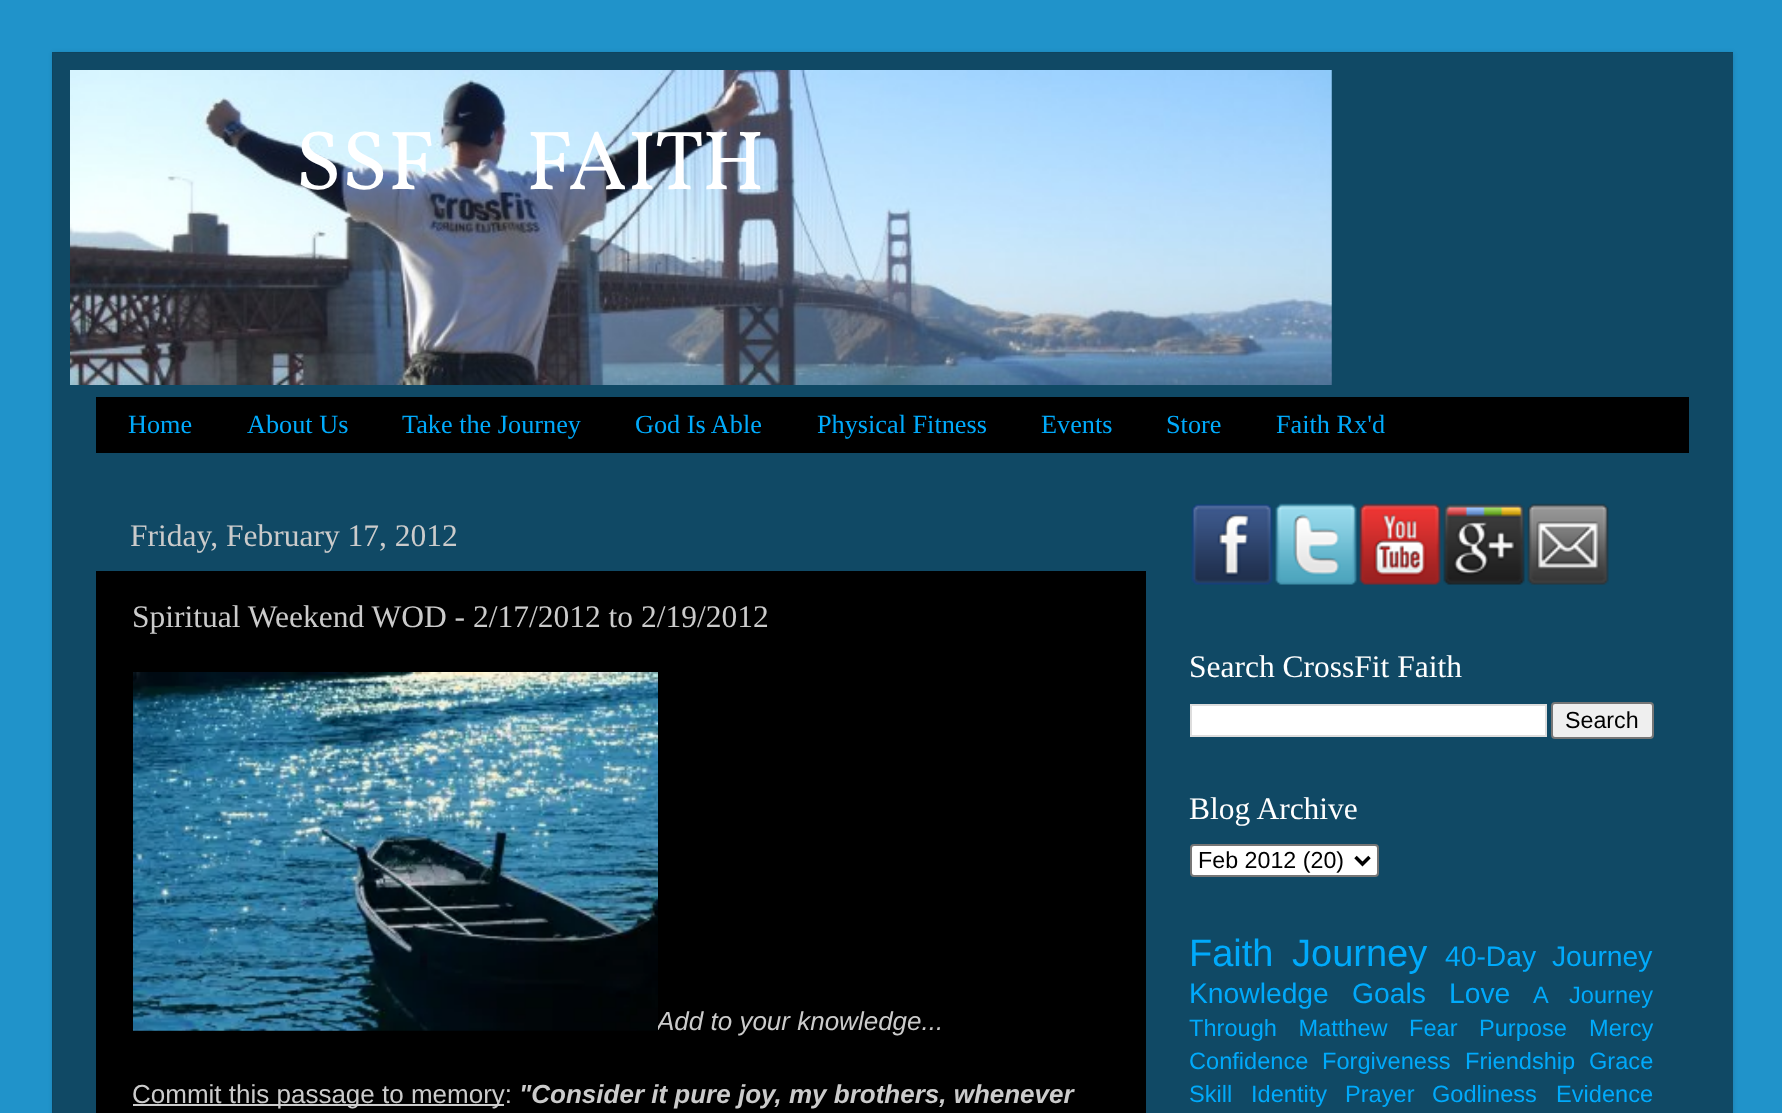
<!DOCTYPE html>
<meta charset="utf-8">
<style>body { margin: 0 } canvas { display: block }</style>
<canvas id="canvas" width="1782" height="1113"></canvas>
<script type="module">
  const canvas = document.getElementById("canvas");
  const ctx = canvas.getContext("2d");
  ctx.miterLimit = 4;
  ctx.fontKerning = "normal";
  async function loadImage(src) {
    const img = new Image();
    img.src = src;
    await img.decode();
    return img;
  }

  ctx.fillStyle = "#2093ca";
  ctx.fillRect(0, 0, 1782, 1113);
  ctx.save();
  ctx.beginPath();
  ctx.moveTo(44, 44);
  ctx.lineTo(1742, 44);
  ctx.lineTo(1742, 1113);
  ctx.lineTo(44, 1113);
  ctx.closePath();
  ctx.moveTo(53, 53);
  ctx.lineTo(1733, 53);
  ctx.lineTo(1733, 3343);
  ctx.lineTo(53, 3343);
  ctx.closePath();
  ctx.clip("evenodd");
  ctx.fillStyle = "rgba(0, 0, 0, 0.15)";
  ctx.filter = "blur(2.5px)";
  ctx.beginPath();
  ctx.rect(53, 53, 1680, 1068);
  ctx.fill();
  ctx.filter = "none";
  ctx.restore();
  ctx.fillStyle = "rgba(0, 0, 0, 0.5)";
  ctx.fillRect(52, 52, 1681, 1061);
  ctx.drawImage(await loadImage("img1.png"), 70, 70, 1262, 315);
  ctx.font = "84px Vollkorn";
  ctx.fillStyle = "#ffffff";
  ctx.fillText("SSF", 295, 189);
  ctx.fillText("FAITH", 526, 189);
  ctx.fillStyle = "#000000";
  ctx.fillRect(96, 397, 1593, 56);
  ctx.font = "26.25px Liberation Serif";
  ctx.fillStyle = "#00aafb";
  ctx.fillText("Home", 128, 433);
  ctx.fillText("About Us", 247, 433);
  ctx.fillText("Take the Journey", 402, 433);
  ctx.fillText("God Is Able", 635, 433);
  ctx.fillText("Physical Fitness", 817, 433);
  ctx.fillText("Events", 1041, 433);
  ctx.fillText("Store", 1166, 433);
  ctx.fillText("Faith Rx'd", 1276, 433);
  ctx.font = "31.5px Liberation Serif";
  ctx.fillStyle = "#cbcbcb";
  ctx.fillText("Friday, February 17, 2012", 130, 546);
  ctx.fillStyle = "#000000";
  ctx.fillRect(96, 571, 1050, 542);
  ctx.fillStyle = "#cbcbcb";
  ctx.fillText("Spiritual Weekend WOD - 2/17/2012 to 2/19/2012", 132, 627);
  ctx.font = "italic 26px Liberation Sans";
  ctx.fillText("Add to your knowledge...", 657, 1030);
  ctx.drawImage(await loadImage("img2.png"), 133, 672, 525, 359);
  ctx.fillRect(133, 1104, 371, 2);
  ctx.font = "26px Liberation Sans";
  ctx.fillText("Commit this passage to memory:", 132, 1103);
  ctx.font = "italic bold 26px Liberation Sans";
  ctx.fillText("\"Consider it pure joy, my brothers, whenever", 519, 1103);
  ctx.drawImage(await loadImage("img3.png"), 1191, 504, 82, 81);
  ctx.drawImage(await loadImage("img4.png"), 1275, 503, 82, 82);
  ctx.drawImage(await loadImage("img5.png"), 1359, 503, 82, 82);
  ctx.drawImage(await loadImage("img6.png"), 1443, 503, 82, 82);
  ctx.drawImage(await loadImage("img7.png"), 1527, 503, 82, 82);
  ctx.font = "31.5px Liberation Serif";
  ctx.fillStyle = "#ffffff";
  ctx.fillText("Search CrossFit Faith", 1189, 677);
  ctx.beginPath();
  ctx.rect(1191, 705, 355, 31);
  ctx.fill();
  ctx.strokeStyle = "#dddddd";
  ctx.lineWidth = 2;
  ctx.stroke();
  ctx.fillStyle = "#efefef";
  ctx.beginPath();
  ctx.roundRect(1552, 703, 101, 35, 3);
  ctx.fill();
  ctx.strokeStyle = "#767676";
  ctx.stroke();
  ctx.font = "23.25px Liberation Sans";
  ctx.fillStyle = "#000000";
  ctx.fillText("Search", 1565, 728);
  ctx.font = "31.5px Liberation Serif";
  ctx.fillStyle = "#ffffff";
  ctx.fillText("Blog Archive", 1189, 819);
  ctx.beginPath();
  ctx.roundRect(1191, 845, 187, 31, 3);
  ctx.fill();
  ctx.stroke();
  ctx.beginPath();
  ctx.moveTo(1355.5, 857);
  ctx.lineTo(1362.5, 864);
  ctx.lineTo(1369.5, 857);
  ctx.strokeStyle = "#000000";
  ctx.lineWidth = 3.5;
  ctx.stroke();
  ctx.font = "23.25px Liberation Sans";
  ctx.fillStyle = "#000000";
  ctx.fillText("Feb 2012 (20)", 1198, 868);
  ctx.font = "38px Liberation Sans";
  ctx.fillStyle = "#00aafb";
  ctx.fillText("Faith", 1189, 966);
  ctx.fillText("Journey", 1292, 966);
  ctx.wordSpacing = "8px";
  ctx.font = "28.25px Liberation Sans";
  ctx.fillText("40-Day Journey", 1445, 966);
  ctx.wordSpacing = "0px";
  ctx.fillText("Knowledge", 1189, 1003);
  ctx.fillText("Goals", 1352, 1003);
  ctx.fillText("Love", 1449, 1003);
  ctx.wordSpacing = "15px";
  ctx.font = "23.6px Liberation Sans";
  ctx.fillText("A Journey", 1533, 1003);
  ctx.fillText("Through Matthew", 1189, 1036);
  ctx.wordSpacing = "0px";
  ctx.fillText("Fear", 1409, 1036);
  ctx.fillText("Purpose", 1479, 1036);
  ctx.fillText("Mercy", 1589, 1036);
  ctx.fillText("Confidence", 1189, 1069);
  ctx.fillText("Forgiveness", 1322, 1069);
  ctx.fillText("Friendship", 1465, 1069);
  ctx.fillText("Grace", 1589, 1069);
  ctx.fillText("Skill", 1189, 1102);
  ctx.fillText("Identity", 1251, 1102);
  ctx.fillText("Prayer", 1345, 1102);
  ctx.fillText("Godliness", 1432, 1102);
  ctx.fillText("Evidence", 1556, 1102);
</script>
